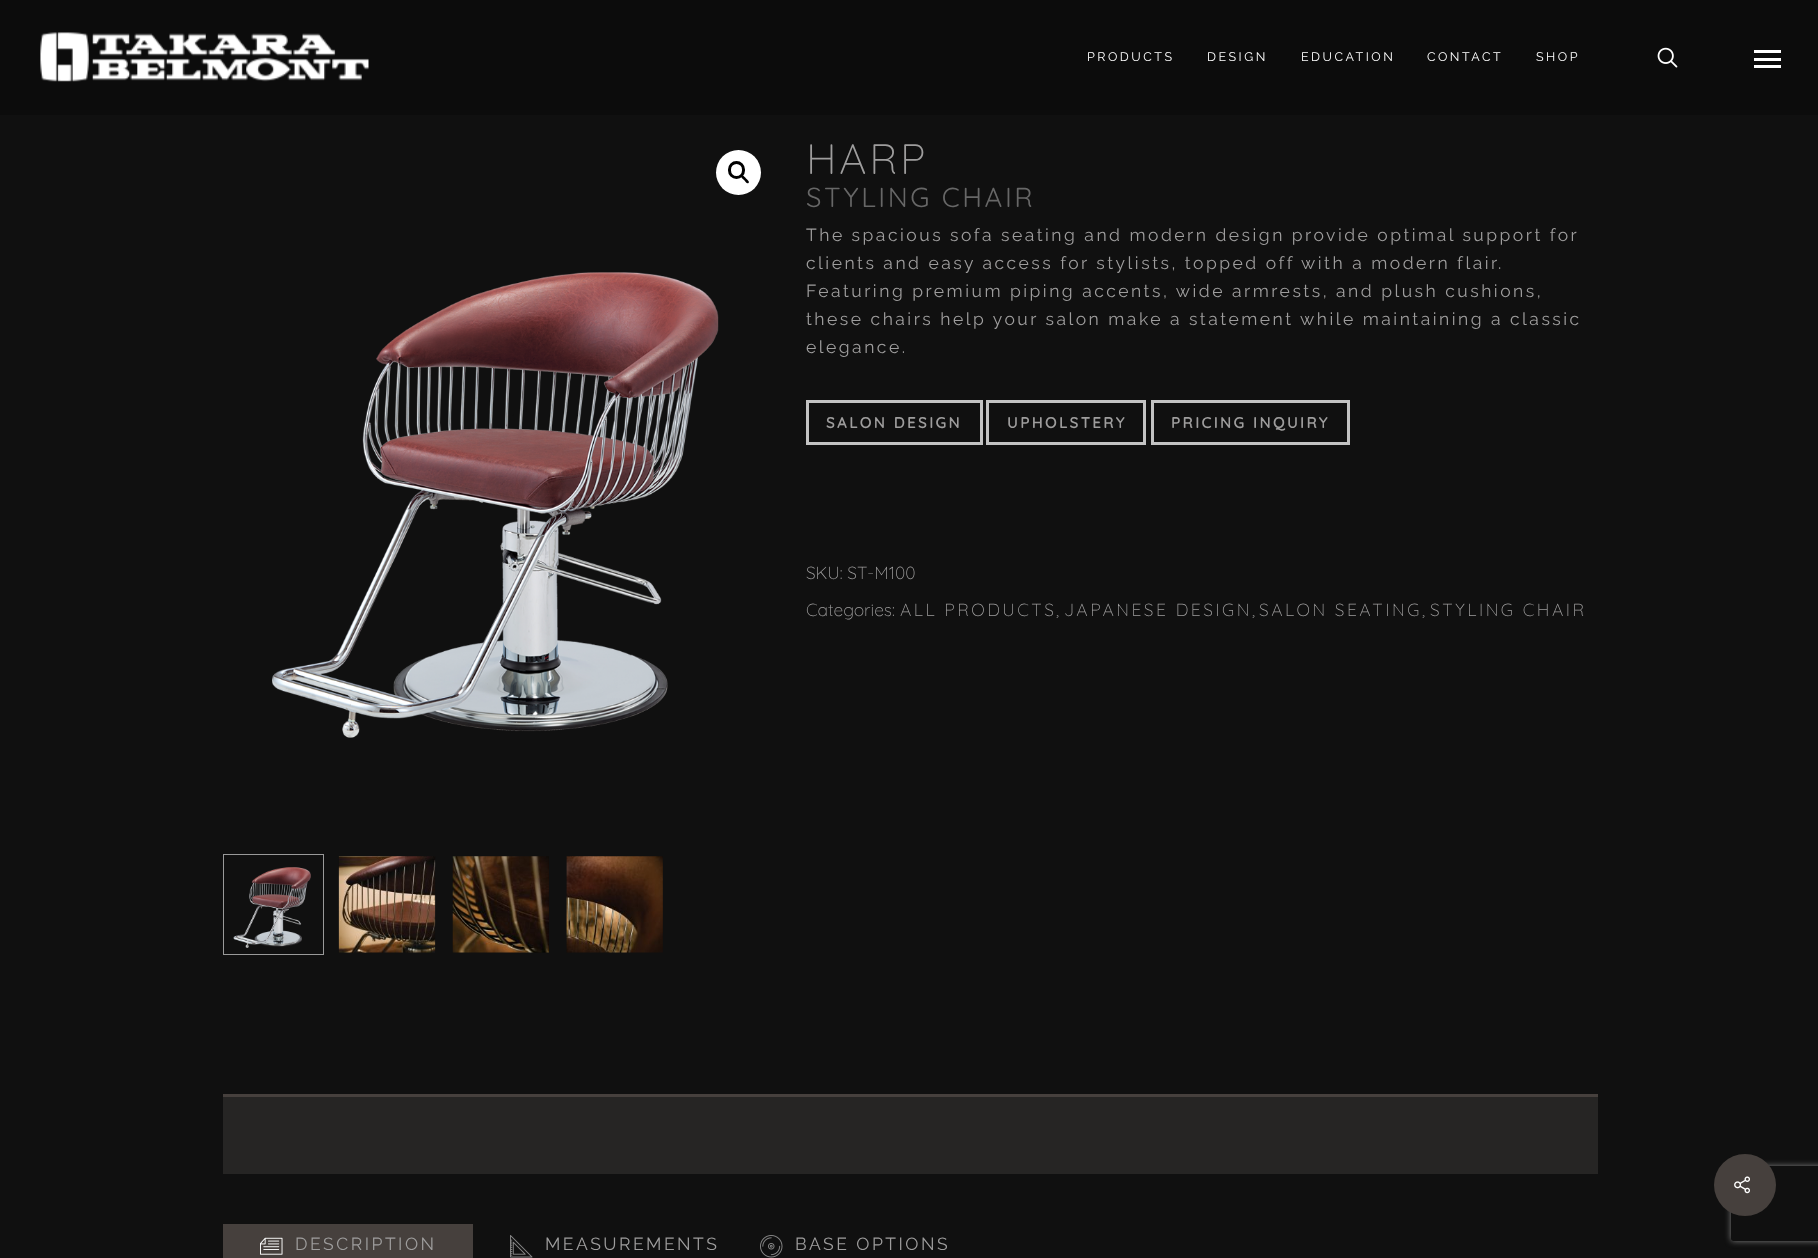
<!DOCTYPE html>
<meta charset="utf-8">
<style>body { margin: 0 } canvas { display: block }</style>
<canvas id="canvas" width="1818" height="1258"></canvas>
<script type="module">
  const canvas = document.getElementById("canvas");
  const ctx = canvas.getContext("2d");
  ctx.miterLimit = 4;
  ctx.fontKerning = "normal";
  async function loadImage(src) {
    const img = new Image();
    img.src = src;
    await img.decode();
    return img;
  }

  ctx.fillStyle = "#0c0c0c";
  ctx.fillRect(0, 0, 1818, 1258);
  ctx.drawImage(await loadImage("img1.png"), 40, 32, 329, 50);
  ctx.letterSpacing = "2.5px";
  ctx.font = "12.5px Raleway";
  ctx.fillStyle = "#ffffff";
  ctx.fillText("PRODUCTS", 1087, 61);
  ctx.fillText("DESIGN", 1207, 61);
  ctx.fillText("EDUCATION", 1301, 61);
  ctx.fillText("CONTACT", 1427, 61);
  ctx.fillText("SHOP", 1536, 61);
  ctx.drawImage(await loadImage("img2.png"), 1657, 47, 21, 21);
  ctx.fillRect(1754, 50, 27, 3);
  ctx.fillRect(1754, 65, 27, 3);
  ctx.fillRect(1754, 58, 27, 3);
  ctx.fillStyle = "#101010";
  ctx.fillRect(0, 115, 1818, 1143);
  ctx.fillStyle = "#ffffff";
  ctx.beginPath();
  ctx.arc(738.5, 172.5, 22.5, 0, Math.PI * 2);
  ctx.fill();
  ctx.beginPath();
  ctx.roundRect(729.5, 162.5, 14, 15, 7);
  ctx.strokeStyle = "#000000";
  ctx.lineWidth = 3;
  ctx.stroke();
  ctx.fillStyle = "#000000";
  ctx.beginPath();
  ctx.moveTo(741.5, 176);
  ctx.bezierCurveTo(743, 174.5, 745, 177.5, 746, 178.5);
  ctx.bezierCurveTo(746.5, 179, 750, 181.5, 748.5, 183);
  ctx.bezierCurveTo(747, 184.5, 745, 181, 744, 180);
  ctx.bezierCurveTo(743.5, 179.5, 740, 177, 741.5, 176);
  ctx.closePath();
  ctx.fill();
  ctx.drawImage(await loadImage("img3.png"), 272, 272, 447, 466);
  ctx.strokeStyle = "#999999";
  ctx.lineWidth = 1;
  ctx.strokeRect(223.5, 854.5, 100, 100);
  ctx.drawImage(await loadImage("img4.png"), 233, 867, 78, 81);
  ctx.drawImage(await loadImage("img5.png"), 338, 856, 98, 97);
  ctx.drawImage(await loadImage("img6.png"), 452, 856, 97, 97);
  ctx.drawImage(await loadImage("img7.png"), 566, 856, 97, 97);
  ctx.font = "300 42.5px Quicksand";
  ctx.fillStyle = "#9e9d9d";
  ctx.fillText("HARP", 806, 174);
  ctx.font = "27.5px Quicksand";
  ctx.fillStyle = "#676767";
  ctx.fillText("STYLING CHAIR", 806, 207);
  ctx.font = "17.5px Raleway";
  ctx.fillStyle = "#9e9d9d";
  ctx.fillText("The spacious sofa seating and modern design provide optimal support for", 806, 241);
  ctx.fillText("clients and easy access for stylists, topped off with a modern flair.", 806, 269);
  ctx.fillText("Featuring premium piping accents, wide armrests, and plush cushions,", 806, 297);
  ctx.fillText("these chairs help your salon make a statement while maintaining a classic", 806, 325);
  ctx.fillText("elegance.", 806, 353);
  ctx.strokeStyle = "#c3c3c3";
  ctx.lineWidth = 3;
  ctx.strokeRect(807.5, 401.5, 174, 42);
  ctx.font = "bold 15px Quicksand";
  ctx.fillText("SALON DESIGN", 826, 428);
  ctx.strokeRect(987.5, 401.5, 157, 42);
  ctx.fillText("UPHOLSTERY", 1007, 428);
  ctx.strokeRect(1152.5, 401.5, 196, 42);
  ctx.fillText("PRICING INQUIRY", 1171, 428);
  ctx.letterSpacing = "0px";
  ctx.font = "300 17.5px Quicksand";
  ctx.fillText("SKU: ST-M100", 806, 579);
  ctx.fillText("Categories:", 806, 616);
  ctx.letterSpacing = "2.5px";
  ctx.fillText("ALL PRODUCTS", 900, 616);
  ctx.letterSpacing = "0px";
  ctx.fillText(",", 1056, 616);
  ctx.letterSpacing = "2.5px";
  ctx.fillText("JAPANESE DESIGN", 1064, 616);
  ctx.letterSpacing = "0px";
  ctx.fillText(",", 1252, 616);
  ctx.letterSpacing = "2.5px";
  ctx.fillText("SALON SEATING", 1259, 616);
  ctx.letterSpacing = "0px";
  ctx.fillText(",", 1422, 616);
  ctx.letterSpacing = "2.5px";
  ctx.fillText("STYLING CHAIR", 1430, 616);
  ctx.fillStyle = "#262524";
  ctx.fillRect(223, 1097, 1375, 77);
  ctx.fillStyle = "#46403d";
  ctx.fillRect(223, 1094, 1375, 3);
  ctx.fillRect(223, 1224, 250, 34);
  ctx.drawImage(await loadImage("img8.png"), 260, 1237, 23, 18);
  ctx.font = "17.5px Raleway";
  ctx.fillStyle = "#9e9d9d";
  ctx.fillText("DESCRIPTION", 295, 1250);
  ctx.drawImage(await loadImage("img9.png"), 510, 1235, 23, 23);
  ctx.fillText("MEASUREMENTS", 545, 1250);
  ctx.drawImage(await loadImage("img10.png"), 760, 1235, 23, 23);
  ctx.fillText("BASE OPTIONS", 795, 1250);
  ctx.save();
  ctx.beginPath();
  ctx.moveTo(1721, 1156);
  ctx.lineTo(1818, 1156);
  ctx.lineTo(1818, 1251);
  ctx.lineTo(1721, 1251);
  ctx.closePath();
  ctx.moveTo(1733.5, 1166);
  ctx.lineTo(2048.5, 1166);
  ctx.bezierCurveTo(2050, 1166, 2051, 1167, 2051, 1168.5);
  ctx.lineTo(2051, 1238.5);
  ctx.bezierCurveTo(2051, 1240, 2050, 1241, 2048.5, 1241);
  ctx.lineTo(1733.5, 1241);
  ctx.bezierCurveTo(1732, 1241, 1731, 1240, 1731, 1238.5);
  ctx.lineTo(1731, 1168.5);
  ctx.bezierCurveTo(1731, 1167, 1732, 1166, 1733.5, 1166);
  ctx.closePath();
  ctx.clip("evenodd");
  ctx.fillStyle = "#808080";
  ctx.filter = "blur(3px)";
  ctx.beginPath();
  ctx.roundRect(1731, 1166, 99, 75, 2.5);
  ctx.fill();
  ctx.filter = "none";
  ctx.restore();
  ctx.fillStyle = "#46403d";
  ctx.beginPath();
  ctx.arc(1745, 1185, 31, 0, Math.PI * 2);
  ctx.fill();
  ctx.drawImage(await loadImage("img11.png"), 1734, 1176, 16, 18);
</script>
